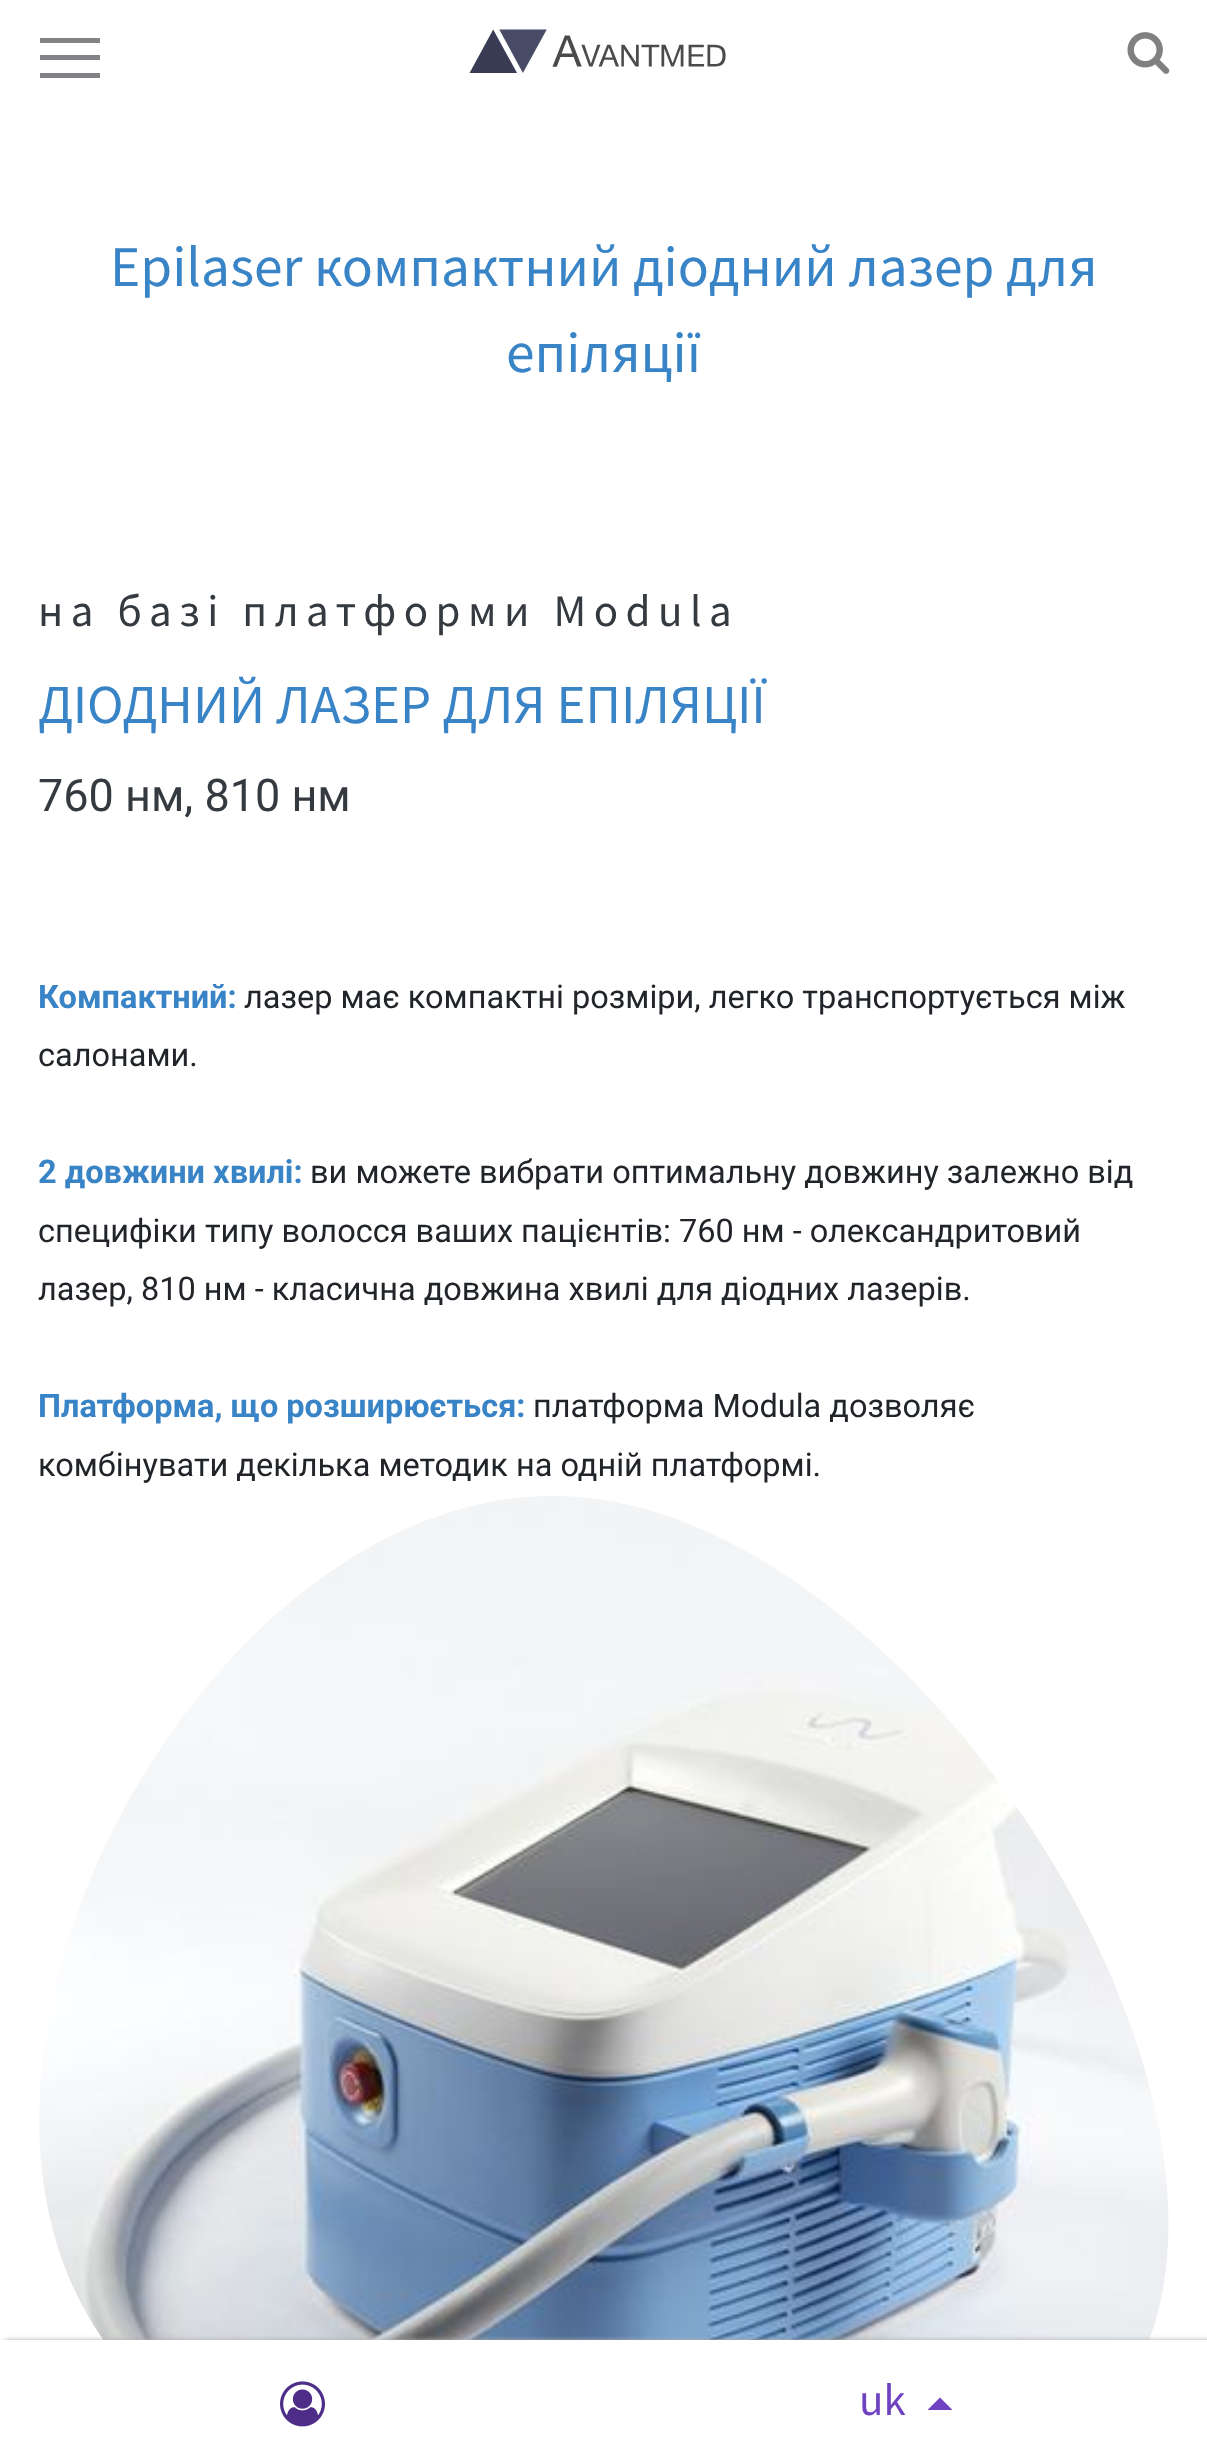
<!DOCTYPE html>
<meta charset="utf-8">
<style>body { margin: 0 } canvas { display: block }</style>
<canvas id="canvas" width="1207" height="2464"></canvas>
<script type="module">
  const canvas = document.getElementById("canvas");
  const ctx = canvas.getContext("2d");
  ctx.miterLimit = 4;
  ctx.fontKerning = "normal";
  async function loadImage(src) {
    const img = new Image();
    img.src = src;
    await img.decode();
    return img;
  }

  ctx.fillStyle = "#ffffff";
  ctx.fillRect(0, 0, 1207, 2464);
  ctx.font = "57.5px Source Sans Pro";
  ctx.fillStyle = "#3984c6";
  ctx.fillText("Epilaser компактний діодний лазер для", 110, 286);
  ctx.fillText("епіляції", 506, 372);
  ctx.letterSpacing = "7.5px";
  ctx.font = "45px Source Sans Pro";
  ctx.fillStyle = "#343a40";
  ctx.fillText("на базі платформи Modula", 38, 626);
  ctx.letterSpacing = "0px";
  ctx.font = "55px Source Sans Pro";
  ctx.fillStyle = "#3984c6";
  ctx.fillText("ДІОДНИЙ ЛАЗЕР ДЛЯ ЕПІЛЯЦІЇ", 38, 723);
  ctx.font = "45px Roboto";
  ctx.fillStyle = "#343a40";
  ctx.fillText("760 нм, 810 нм", 38, 811);
  ctx.font = "bold 32.5px Roboto";
  ctx.fillStyle = "#3984c6";
  ctx.fillText("Компактний:", 38, 1008);
  ctx.font = "32.5px Roboto";
  ctx.fillStyle = "#212529";
  ctx.fillText("лазер має компактні розміри, легко транспортується між", 244, 1008);
  ctx.fillText("салонами.", 38, 1066);
  ctx.font = "bold 32.5px Roboto";
  ctx.fillStyle = "#3984c6";
  ctx.fillText("2 довжини хвилі:", 38, 1183);
  ctx.font = "32.5px Roboto";
  ctx.fillStyle = "#212529";
  ctx.fillText("ви можете вибрати оптимальну довжину залежно від", 310, 1183);
  ctx.fillText("специфіки типу волосся ваших пацієнтів: 760 нм - олександритовий", 38, 1242);
  ctx.fillText("лазер, 810 нм - класична довжина хвилі для діодних лазерів.", 38, 1300);
  ctx.font = "bold 32.5px Roboto";
  ctx.fillStyle = "#3984c6";
  ctx.fillText("Платформа, що розширюється:", 38, 1417);
  ctx.font = "32.5px Roboto";
  ctx.fillStyle = "#212529";
  ctx.fillText("платформа Modula дозволяє", 533, 1417);
  ctx.fillText("комбінувати декілька методик на одній платформі.", 38, 1476);
  ctx.drawImage(await loadImage("img1.png"), 39, 1496, 1130, 844);
  ctx.fillStyle = "#828387";
  ctx.fillRect(40, 38, 60, 5);
  ctx.fillRect(40, 55, 60, 5);
  ctx.fillRect(40, 73, 60, 5);
  ctx.drawImage(await loadImage("img2.png"), 469, 29, 257, 44);
  ctx.drawImage(await loadImage("img3.png"), 1127, 32, 43, 42);
  ctx.fillStyle = "#ababab";
  ctx.filter = "blur(2.5px)";
  ctx.beginPath();
  ctx.rect(5, 2340, 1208, 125);
  ctx.fill();
  ctx.filter = "none";
  ctx.fillStyle = "#ffffff";
  ctx.fillRect(0, 2340, 1207, 124);
  ctx.drawImage(await loadImage("img4.png"), 280, 2381, 45, 46);
  ctx.font = "45px Source Sans Pro";
  ctx.fillStyle = "#6f42c1";
  ctx.fillText("uk", 859, 2415);
  ctx.beginPath();
  ctx.moveTo(952.5, 2410);
  ctx.lineTo(927.5, 2410);
  ctx.lineTo(940, 2397.5);
  ctx.closePath();
  ctx.fill();
</script>
